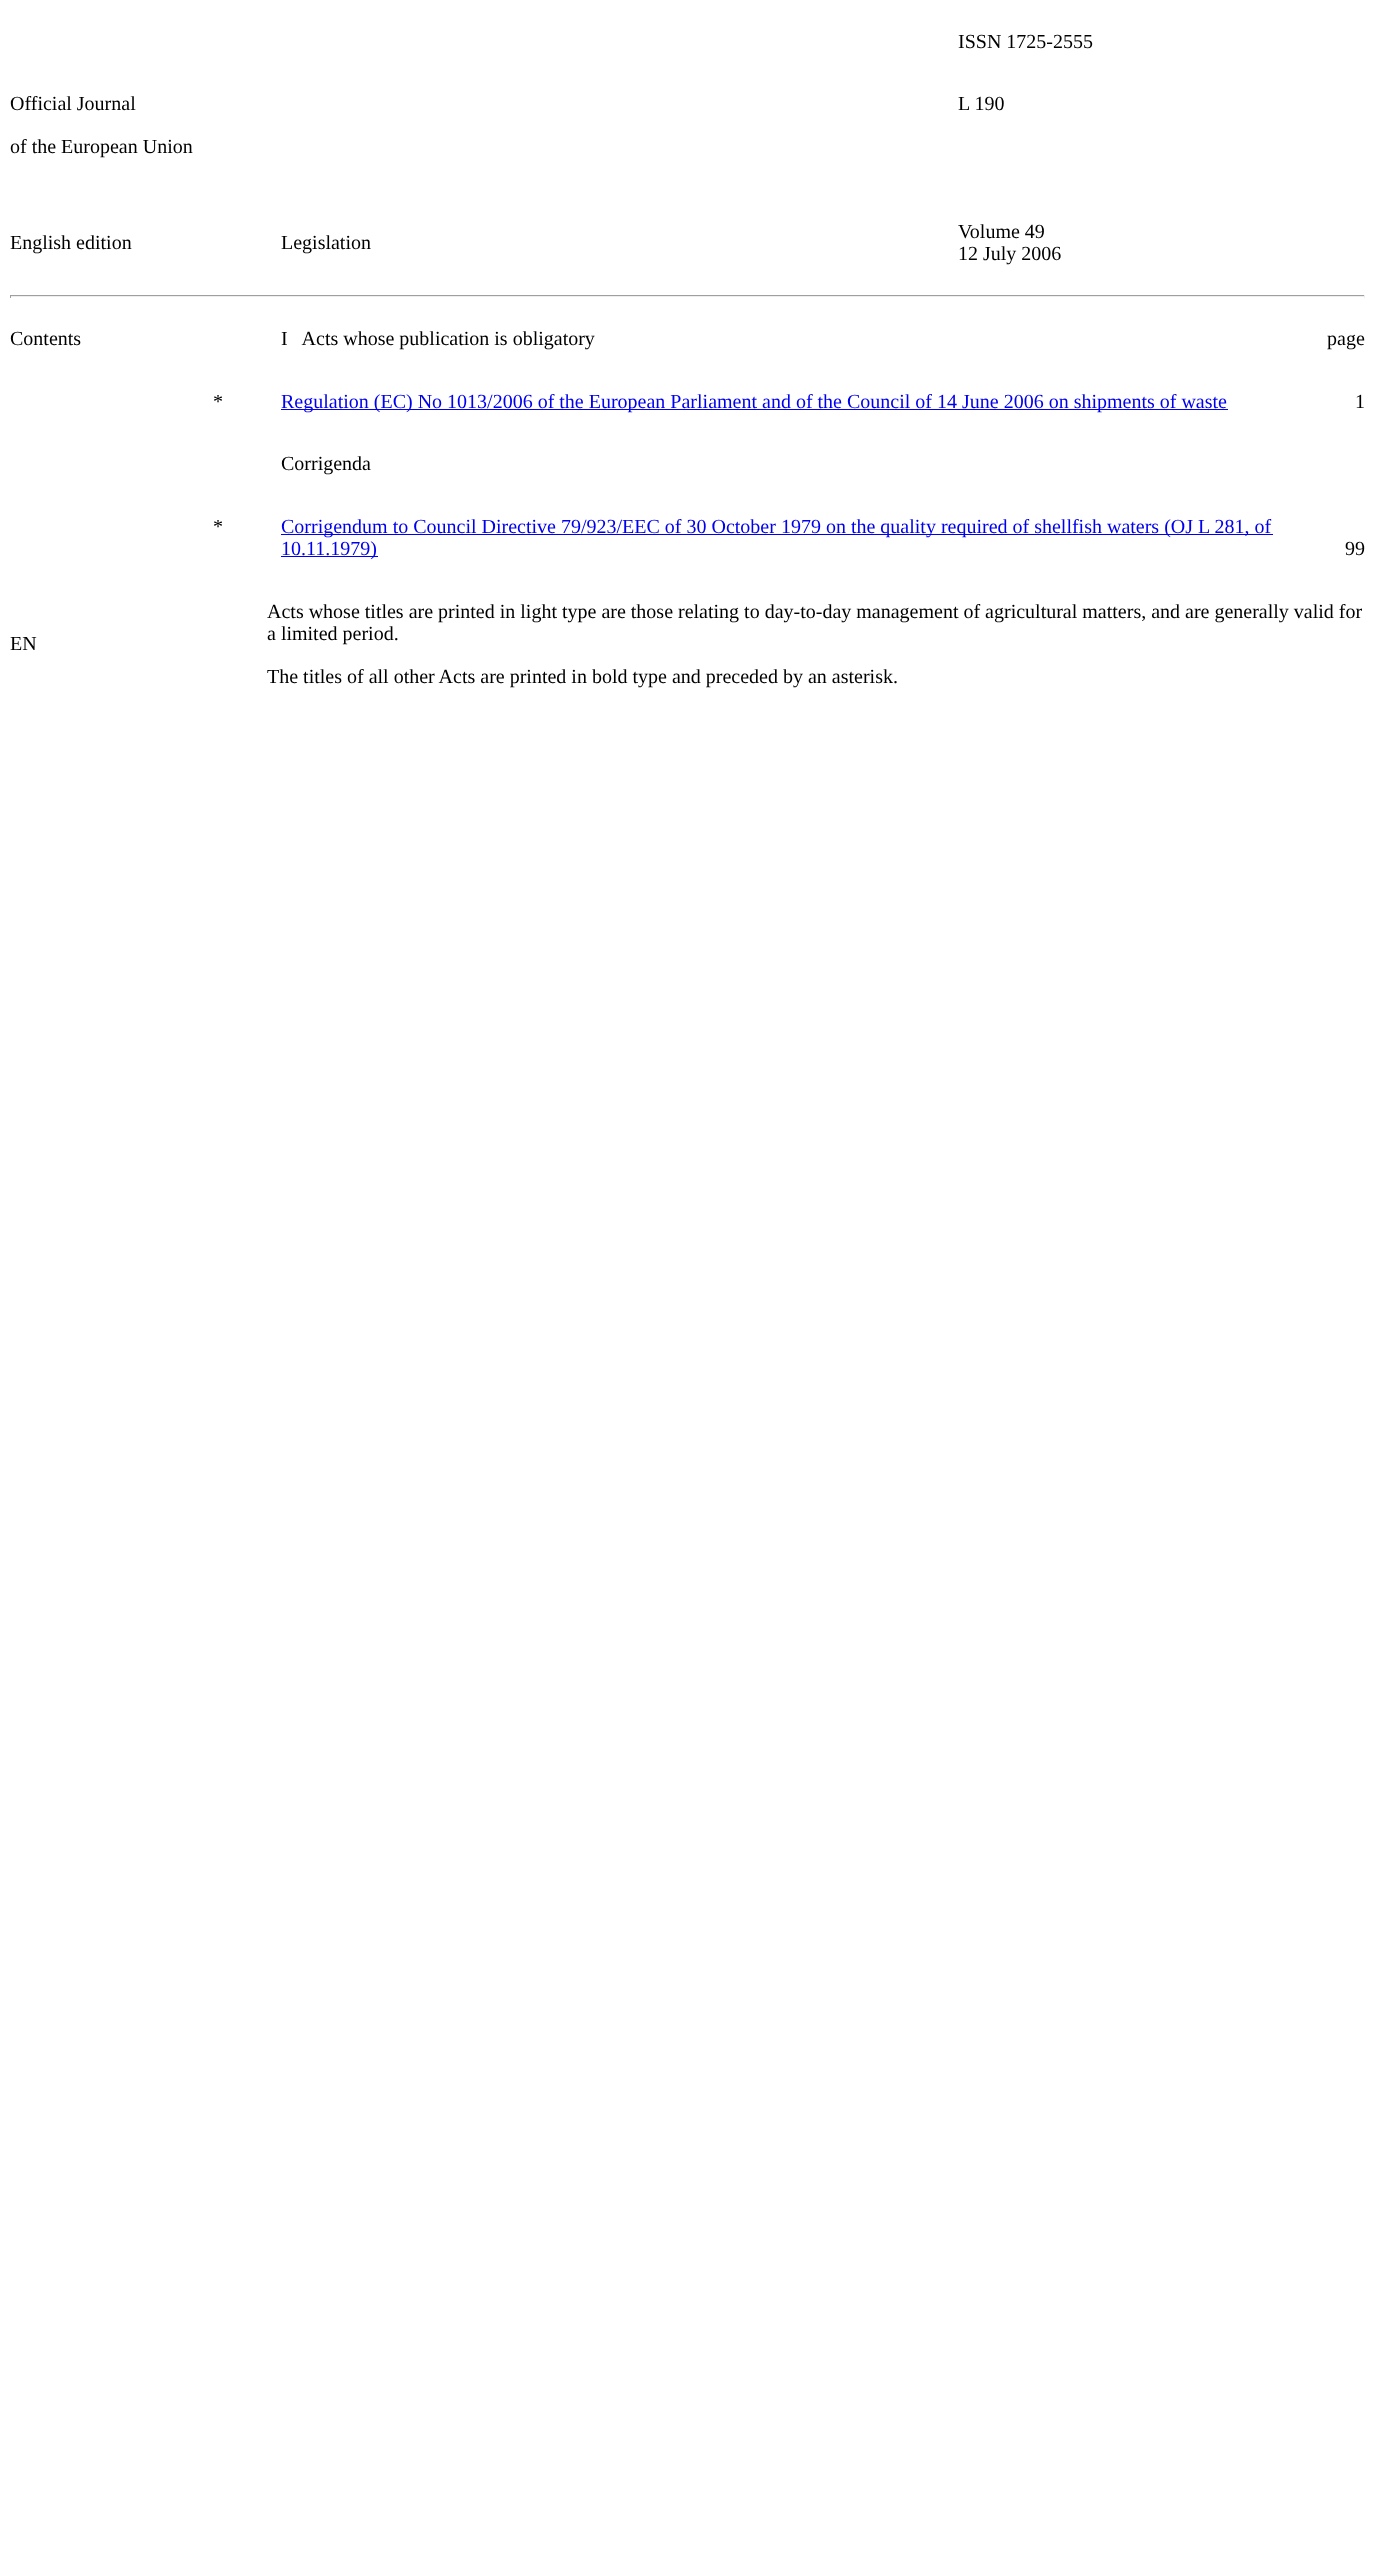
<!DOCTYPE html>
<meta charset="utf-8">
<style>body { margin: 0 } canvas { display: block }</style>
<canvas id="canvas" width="1375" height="2571"></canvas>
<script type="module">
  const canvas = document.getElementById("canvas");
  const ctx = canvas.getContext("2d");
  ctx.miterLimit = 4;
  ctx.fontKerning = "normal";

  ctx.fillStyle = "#ffffff";
  ctx.fillRect(0, 0, 1375, 2571);
  ctx.font = "20px Liberation Serif";
  ctx.fillStyle = "#000000";
  ctx.fillText("ISSN 1725-2555", 958, 48);
  ctx.fillText("Official Journal", 10, 110);
  ctx.fillText("of the European Union", 10, 153);
  ctx.fillText("L 190", 958, 110);
  ctx.fillText("English edition", 10, 249);
  ctx.fillText("Legislation", 281, 249);
  ctx.fillText("Volume 49", 958, 238);
  ctx.fillText("12 July 2006", 958, 260);
  ctx.fillStyle = "#9f9f9f";
  ctx.fillRect(10, 295, 1355, 1);
  ctx.fillStyle = "#eeeeee";
  ctx.fillRect(1364, 295, 1, 3);
  ctx.fillRect(10, 296, 1355, 1);
  ctx.fillStyle = "#9f9f9f";
  ctx.fillRect(10, 295, 1, 3);
  ctx.fillStyle = "#000000";
  ctx.fillText("Contents", 10, 345);
  ctx.fillText("I   Acts whose publication is obligatory", 281, 345);
  ctx.fillText("page", 1327, 345);
  ctx.fillText("*", 213, 408);
  ctx.fillStyle = "#0000ee";
  ctx.fillRect(281, 409, 947, 1);
  ctx.fillText("Regulation (EC) No 1013/2006 of the European Parliament and of the Council of 14 June 2006 on shipments of waste", 281, 408);
  ctx.fillStyle = "#000000";
  ctx.fillText("1", 1355, 408);
  ctx.fillText("Corrigenda", 281, 470);
  ctx.fillText("*", 213, 533);
  ctx.fillStyle = "#0000ee";
  ctx.fillRect(281, 534, 992, 1);
  ctx.fillText("Corrigendum to Council Directive 79/923/EEC of 30 October 1979 on the quality required of shellfish waters (OJ L 281, of", 281, 533);
  ctx.fillRect(281, 556, 97, 1);
  ctx.fillText("10.11.1979)", 281, 555);
  ctx.fillStyle = "#000000";
  ctx.fillText("99", 1345, 555);
  ctx.fillText("EN", 10, 650);
  ctx.fillText("Acts whose titles are printed in light type are those relating to day-to-day management of agricultural matters, and are generally valid for", 267, 618);
  ctx.fillText("a limited period.", 267, 640);
  ctx.fillText("The titles of all other Acts are printed in bold type and preceded by an asterisk.", 267, 683);
</script>
